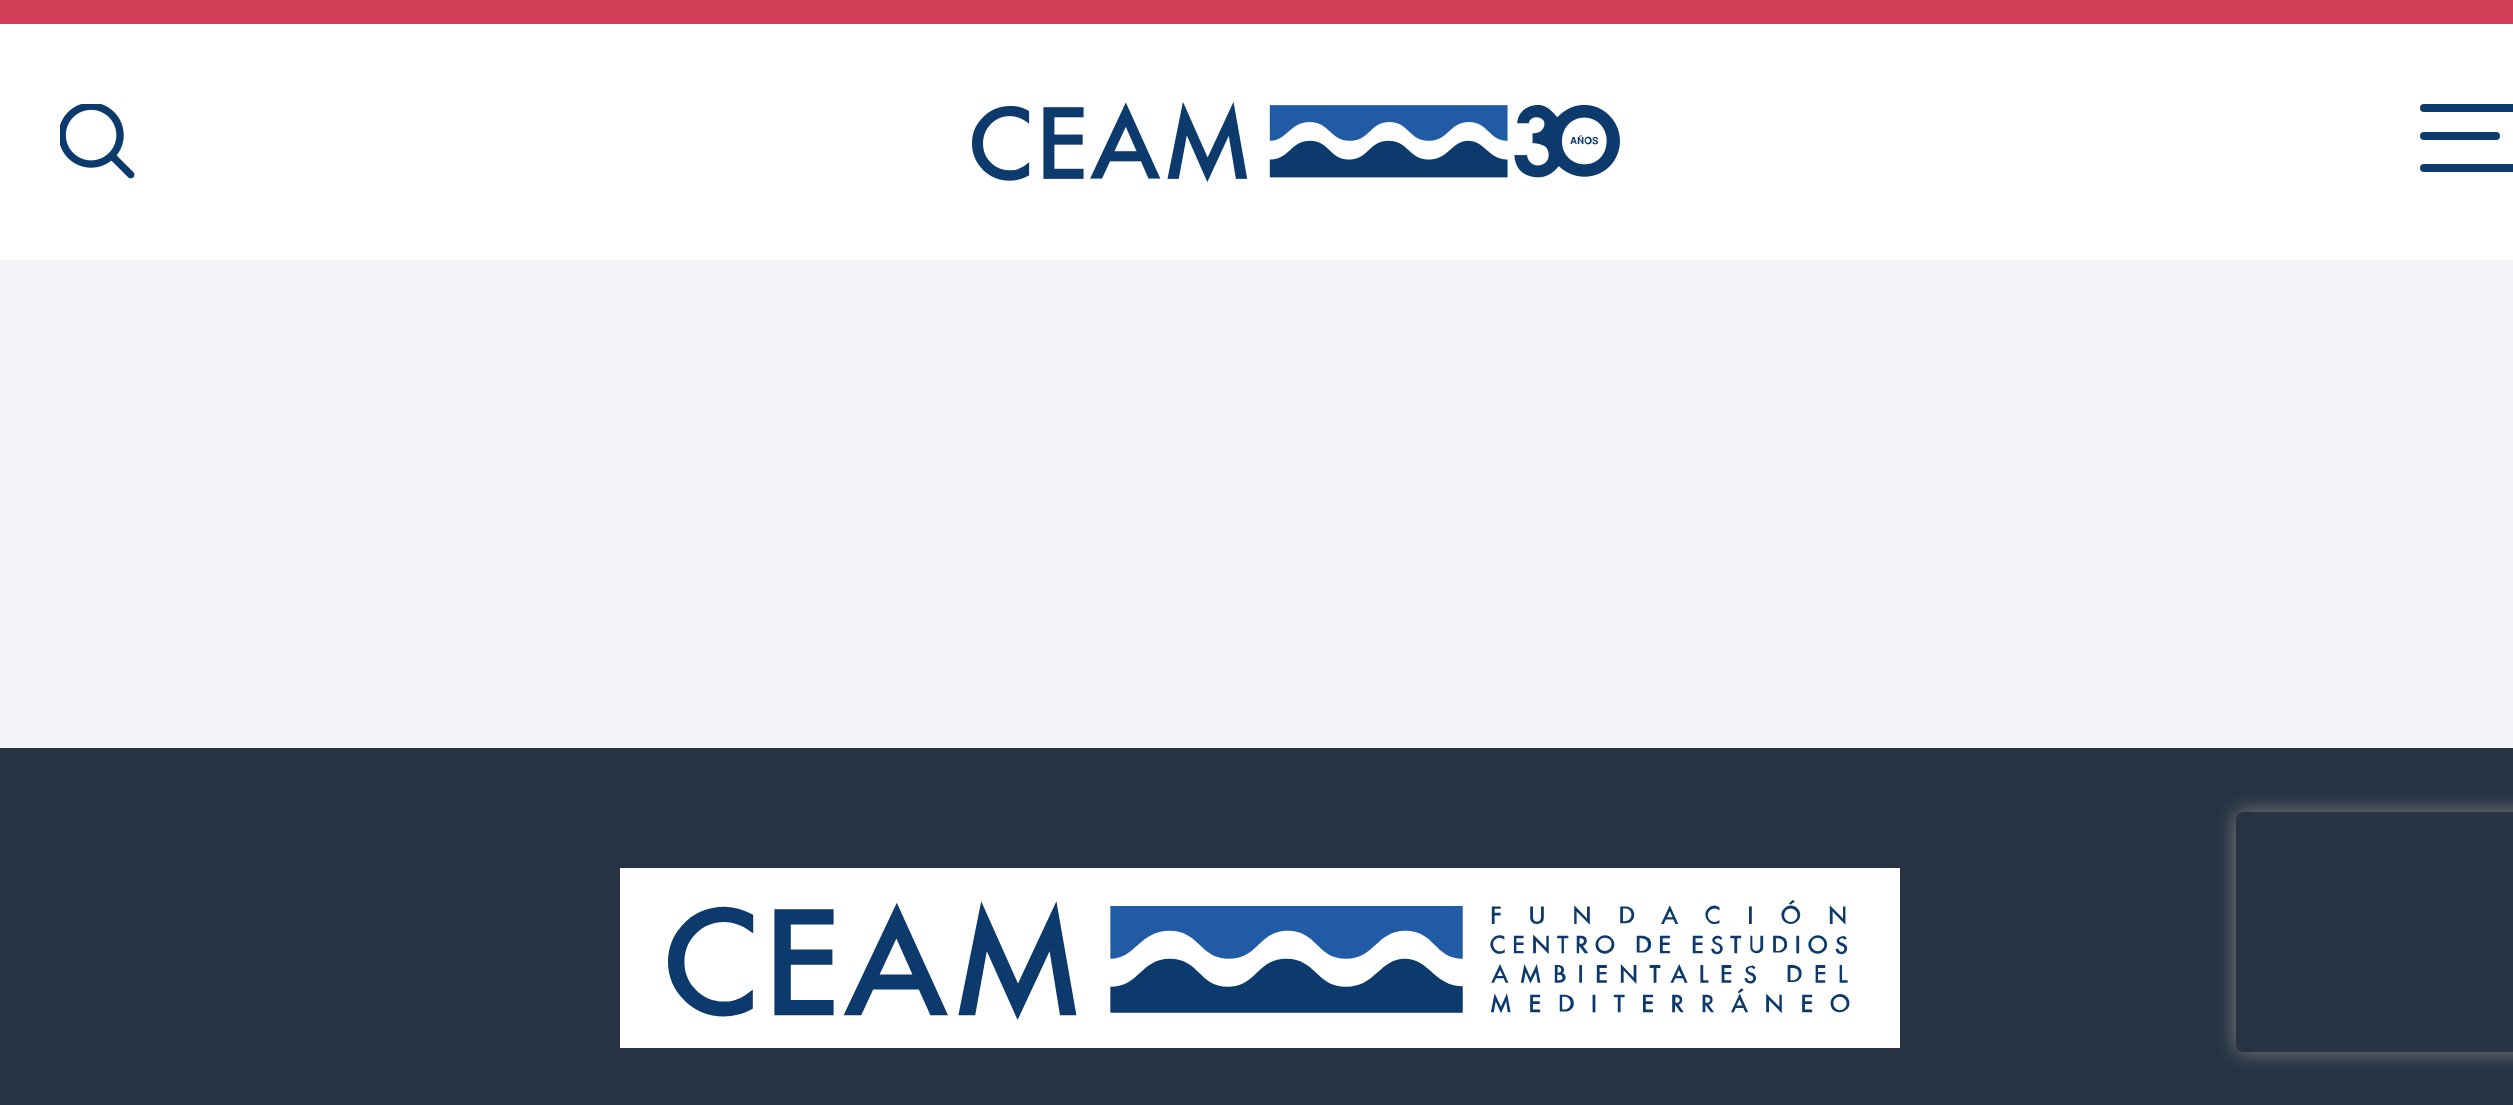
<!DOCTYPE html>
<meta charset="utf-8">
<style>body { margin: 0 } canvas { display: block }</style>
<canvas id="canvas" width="2513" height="1105"></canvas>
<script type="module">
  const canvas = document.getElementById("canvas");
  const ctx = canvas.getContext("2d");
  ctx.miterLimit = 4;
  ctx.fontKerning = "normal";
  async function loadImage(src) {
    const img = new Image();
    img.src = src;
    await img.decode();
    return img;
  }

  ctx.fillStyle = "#f4f5f9";
  ctx.fillRect(0, 0, 2513, 1105);
  ctx.fillStyle = "#ffffff";
  ctx.fillRect(0, 24, 2513, 236);
  ctx.fillStyle = "#d23e57";
  ctx.fillRect(0, 0, 2513, 24);
  ctx.drawImage(await loadImage("img1.png"), 60, 104, 75, 75);
  ctx.drawImage(await loadImage("img2.png"), 972, 102, 648, 80);
  ctx.fillStyle = "#0c3a6c";
  ctx.beginPath();
  ctx.roundRect(2420, 104, 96, 8, 4);
  ctx.fill();
  ctx.beginPath();
  ctx.roundRect(2420, 132, 80, 8, 4);
  ctx.fill();
  ctx.beginPath();
  ctx.roundRect(2420, 164, 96, 8, 4);
  ctx.fill();
  ctx.fillStyle = "#273343";
  ctx.fillRect(0, 748, 2513, 357);
  ctx.drawImage(await loadImage("img3.png"), 620, 868, 1280, 180);
  ctx.save();
  ctx.beginPath();
  ctx.moveTo(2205, 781);
  ctx.lineTo(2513, 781);
  ctx.lineTo(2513, 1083);
  ctx.lineTo(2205, 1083);
  ctx.closePath();
  ctx.moveTo(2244, 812);
  ctx.lineTo(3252, 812);
  ctx.bezierCurveTo(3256.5, 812, 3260, 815.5, 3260, 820);
  ctx.lineTo(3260, 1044);
  ctx.bezierCurveTo(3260, 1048.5, 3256.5, 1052, 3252, 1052);
  ctx.lineTo(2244, 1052);
  ctx.bezierCurveTo(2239.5, 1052, 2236, 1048.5, 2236, 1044);
  ctx.lineTo(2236, 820);
  ctx.bezierCurveTo(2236, 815.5, 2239.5, 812, 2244, 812);
  ctx.closePath();
  ctx.clip("evenodd");
  ctx.fillStyle = "#808080";
  ctx.filter = "blur(10px)";
  ctx.beginPath();
  ctx.roundRect(2236, 812, 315, 240, 8);
  ctx.fill();
  ctx.filter = "none";
  ctx.restore();
</script>
